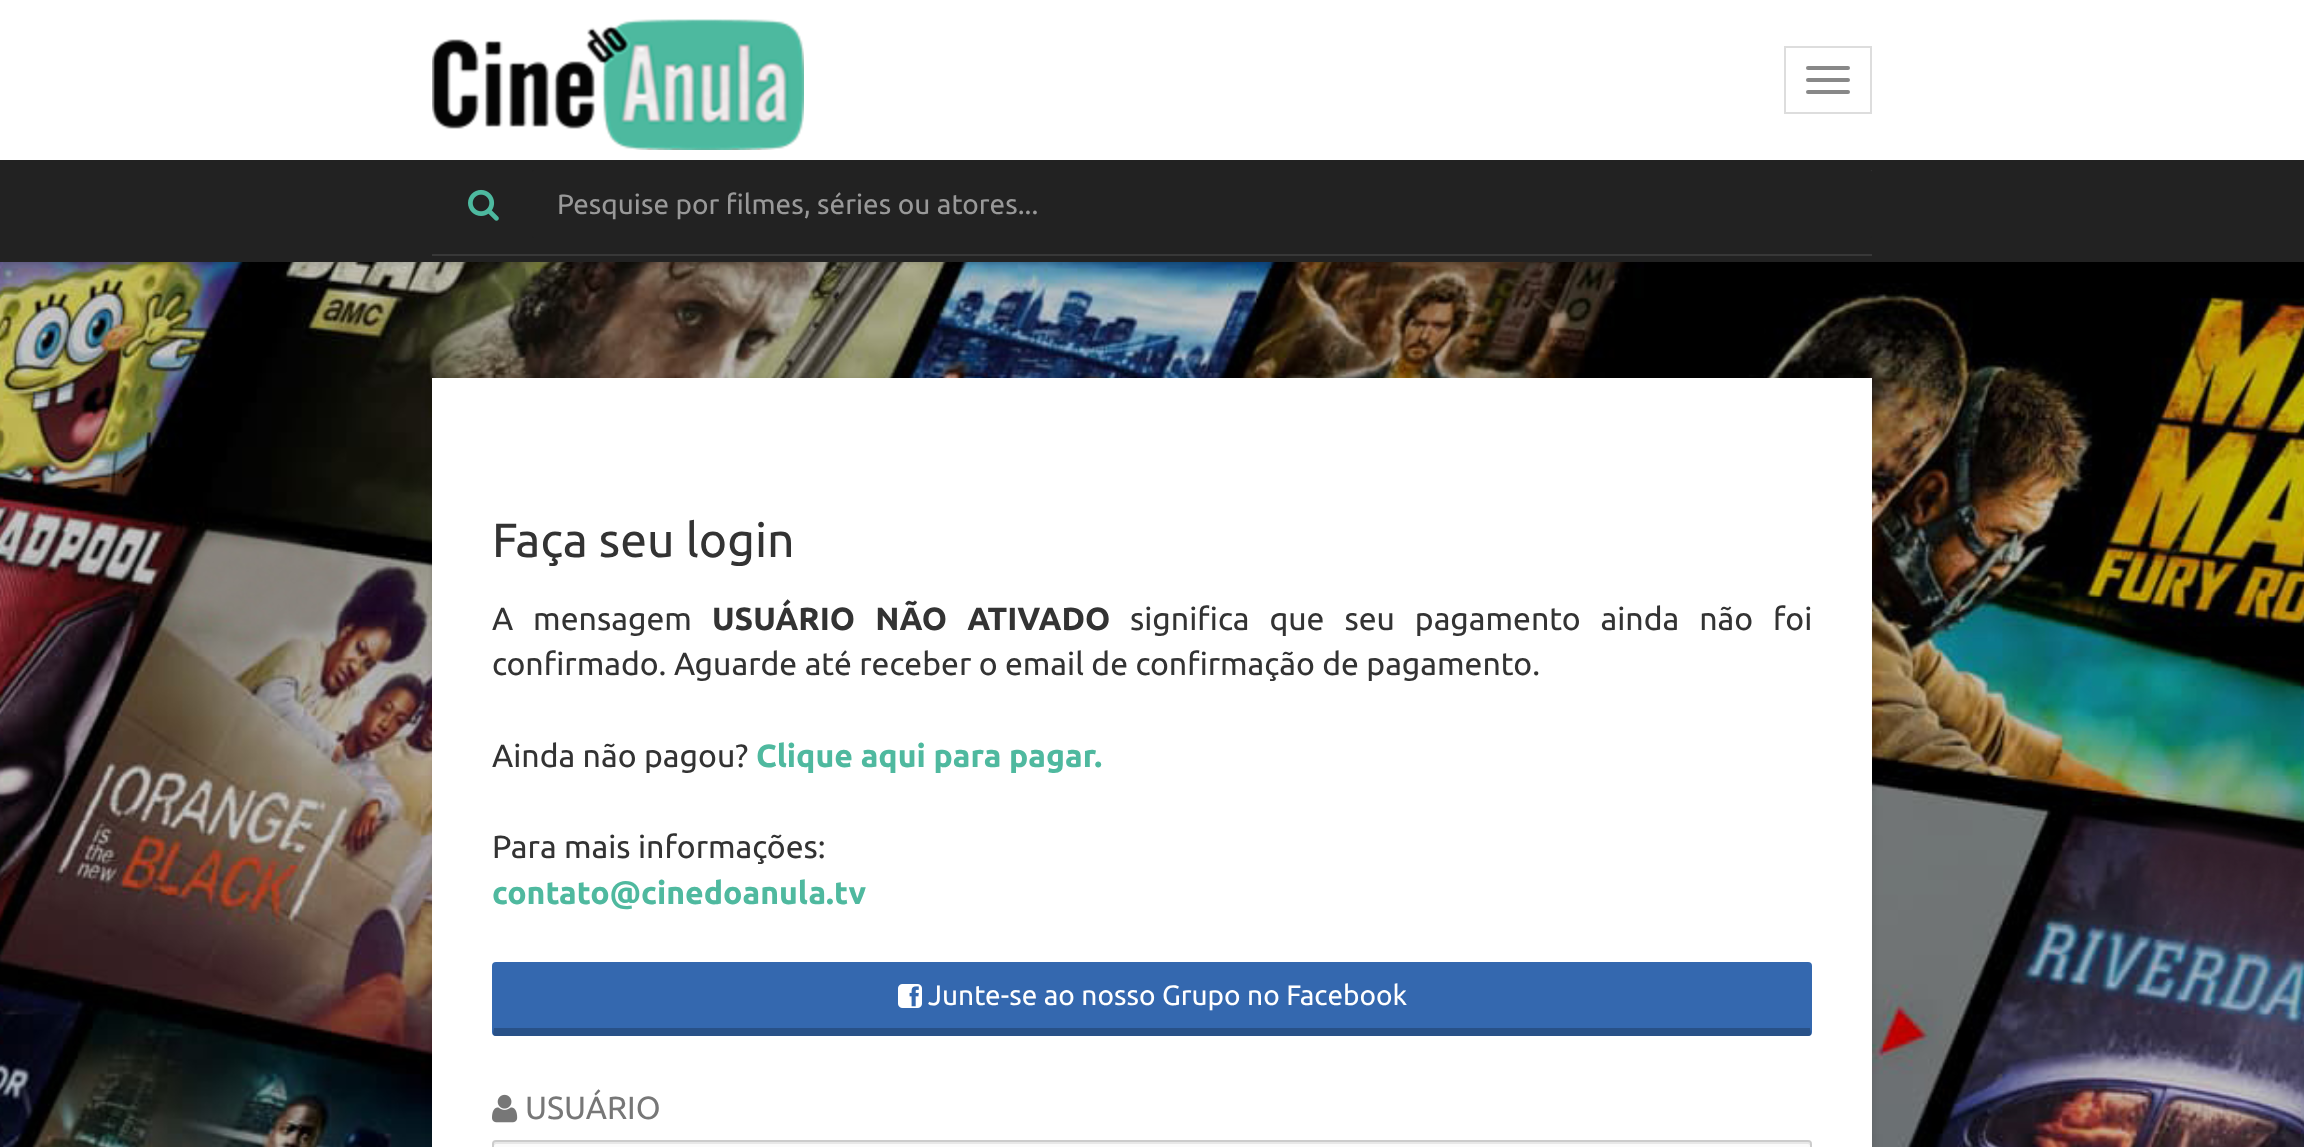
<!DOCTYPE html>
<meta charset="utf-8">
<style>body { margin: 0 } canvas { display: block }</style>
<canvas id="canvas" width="2304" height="1147"></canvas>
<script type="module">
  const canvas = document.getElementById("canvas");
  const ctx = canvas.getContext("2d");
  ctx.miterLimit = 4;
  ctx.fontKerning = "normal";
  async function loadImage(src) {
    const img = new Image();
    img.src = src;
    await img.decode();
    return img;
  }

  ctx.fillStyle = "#ffffff";
  ctx.fillRect(0, 0, 2304, 1147);
  ctx.drawImage(await loadImage("img1.png"), 0, 262, 2304, 885);
  ctx.fillStyle = "rgba(0, 0, 0, 0.1)";
  ctx.filter = "blur(2px)";
  ctx.beginPath();
  ctx.rect(0, 2, 2304, 262);
  ctx.fill();
  ctx.filter = "none";
  ctx.fillStyle = "#ffffff";
  ctx.fillRect(0, 0, 2304, 160);
  ctx.drawImage(await loadImage("img2.png"), 432, 19, 372, 131);
  ctx.strokeStyle = "#dddddd";
  ctx.lineWidth = 2;
  ctx.strokeRect(1785, 47, 86, 66);
  ctx.fillStyle = "#888888";
  ctx.beginPath();
  ctx.roundRect(1806, 66, 44, 4, 2);
  ctx.fill();
  ctx.beginPath();
  ctx.roundRect(1806, 78, 44, 4, 2);
  ctx.fill();
  ctx.beginPath();
  ctx.roundRect(1806, 90, 44, 4, 2);
  ctx.fill();
  ctx.fillStyle = "#222222";
  ctx.fillRect(0, 160, 2304, 102);
  ctx.fillStyle = "#383838";
  ctx.fillRect(432, 254, 1440, 2);
  ctx.fillRect(1870, 170, 2, 2);
  ctx.drawImage(await loadImage("img3.png"), 468, 189, 31, 32);
  ctx.fillStyle = "#222222";
  ctx.beginPath();
  ctx.roundRect(532, 170, 1340, 68, 2);
  ctx.fill();
  ctx.font = "28px Ubuntu";
  ctx.fillStyle = "#999999";
  ctx.fillText("Pesquise por filmes, séries ou atores...", 557, 214);
  ctx.fillStyle = "rgba(0, 0, 0, 0.13)";
  ctx.filter = "blur(3px)";
  ctx.beginPath();
  ctx.rect(432, 380, 1440, 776);
  ctx.fill();
  ctx.filter = "none";
  ctx.fillStyle = "#ffffff";
  ctx.fillRect(432, 378, 1440, 769);
  ctx.font = "48px Ubuntu";
  ctx.fillStyle = "#333333";
  ctx.fillText("Faça seu login", 492, 557);
  ctx.wordSpacing = "12.5px";
  ctx.font = "32px Ubuntu";
  ctx.fillText("A mensagem", 492, 630);
  ctx.font = "bold 32px Ubuntu";
  ctx.fillText("USUÁRIO NÃO ATIVADO", 712, 630);
  ctx.font = "32px Ubuntu";
  ctx.fillText("significa que seu pagamento ainda não foi", 1130, 630);
  ctx.wordSpacing = "0px";
  ctx.fillText("confirmado. Aguarde até receber o email de confirmação de pagamento.", 492, 675);
  ctx.fillText("Ainda não pagou?", 492, 767);
  ctx.font = "bold 32px Ubuntu";
  ctx.fillStyle = "#4fb99f";
  ctx.fillText("Clique aqui para pagar.", 756, 767);
  ctx.font = "32px Ubuntu";
  ctx.fillStyle = "#333333";
  ctx.fillText("Para mais informações:", 492, 858);
  ctx.font = "bold 32px Ubuntu";
  ctx.fillStyle = "#4fb99f";
  ctx.fillText("contato@cinedoanula.tv", 492, 904);
  ctx.fillStyle = "#3468af";
  ctx.beginPath();
  ctx.roundRect(492, 962, 1320, 74, 4);
  ctx.fill();
  ctx.fillStyle = "#285188";
  ctx.beginPath();
  ctx.moveTo(496, 1036);
  ctx.lineTo(1808, 1036);
  ctx.bezierCurveTo(1809, 1036, 1811, 1035, 1811, 1034);
  ctx.lineTo(1810, 1028);
  ctx.lineTo(494, 1028);
  ctx.lineTo(493, 1034);
  ctx.bezierCurveTo(493, 1035, 495, 1036, 496, 1036);
  ctx.closePath();
  ctx.fill();
  ctx.drawImage(await loadImage("img4.png"), 898, 984, 24, 24);
  ctx.font = "28px Ubuntu";
  ctx.fillStyle = "#ffffff";
  ctx.fillText("Junte-se ao nosso Grupo no Facebook", 928, 1005);
  ctx.drawImage(await loadImage("img5.png"), 492, 1094, 26, 29);
  ctx.font = "32px Ubuntu";
  ctx.fillStyle = "#777777";
  ctx.fillText("USUÁRIO", 525, 1119);
  ctx.fillStyle = "#fbfbfb";
  ctx.beginPath();
  ctx.roundRect(492, 1140, 1320, 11, 4);
  ctx.fill();
  ctx.fillStyle = "#e8e8e8";
  ctx.beginPath();
  ctx.moveTo(496, 1144);
  ctx.lineTo(1808, 1144);
  ctx.bezierCurveTo(1809, 1144, 1810, 1145, 1810, 1146);
  ctx.bezierCurveTo(1810, 1144, 1810, 1142, 1808, 1142);
  ctx.lineTo(496, 1142);
  ctx.bezierCurveTo(494, 1142, 494, 1144, 494, 1146);
  ctx.bezierCurveTo(494, 1145, 495, 1144, 496, 1144);
  ctx.closePath();
  ctx.fill();
  ctx.beginPath();
  ctx.roundRect(493, 1141, 1318, 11, 3);
  ctx.strokeStyle = "#cccccc";
  ctx.stroke();
</script>
